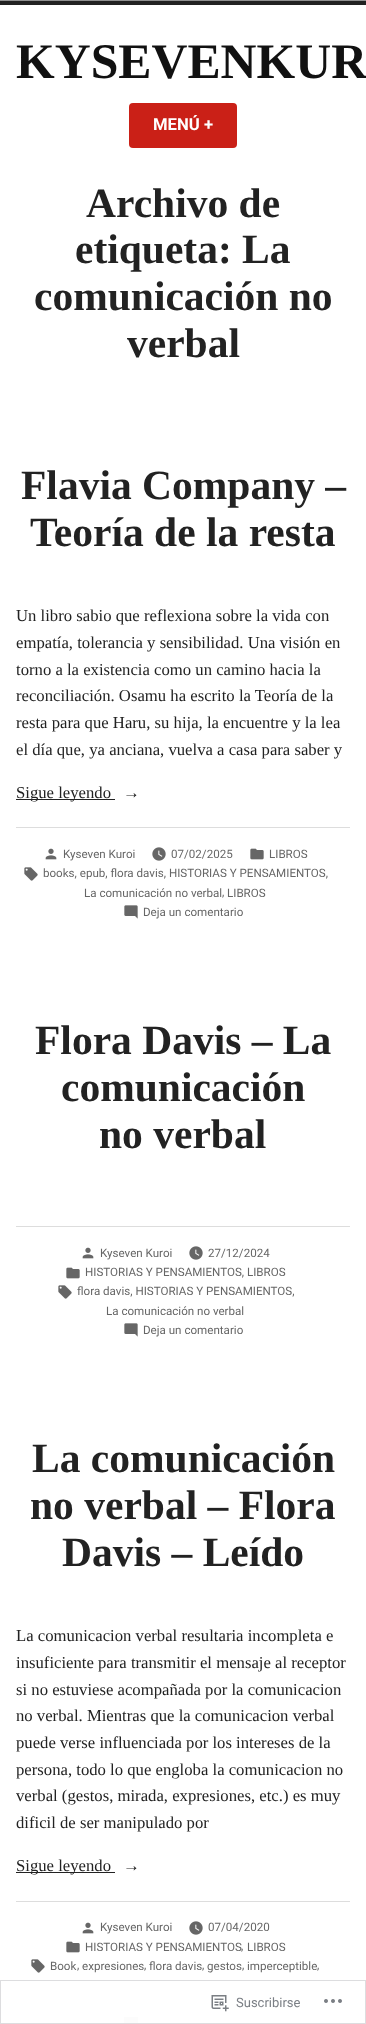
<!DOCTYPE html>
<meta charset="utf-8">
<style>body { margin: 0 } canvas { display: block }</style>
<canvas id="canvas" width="366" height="2024"></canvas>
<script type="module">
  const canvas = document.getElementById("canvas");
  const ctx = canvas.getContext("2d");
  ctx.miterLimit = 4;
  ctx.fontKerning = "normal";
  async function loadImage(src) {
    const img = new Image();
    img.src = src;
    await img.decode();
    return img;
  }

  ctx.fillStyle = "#ffffff";
  ctx.fillRect(0, 0, 366, 2024);
  ctx.fillStyle = "#222222";
  ctx.fillRect(0, 1, 366, 4);
  ctx.fillStyle = "#919191";
  ctx.fillRect(0, 0, 366, 1);
  ctx.font = "bold 49.75px Liberation Serif";
  ctx.fillStyle = "#111111";
  ctx.fillText("KYSEVENKUR", 16, 78);
  ctx.fillStyle = "#ca2017";
  ctx.beginPath();
  ctx.roundRect(129, 103, 108, 45, 4);
  ctx.fill();
  ctx.font = "bold 16.7px Roboto";
  ctx.fillStyle = "#ffffff";
  ctx.fillText("MENÚ +", 153, 130);
  ctx.font = "bold 41.5px Liberation Serif";
  ctx.fillStyle = "#222222";
  ctx.fillText("Archivo de", 86, 217);
  ctx.fillText("etiqueta: La", 75, 263);
  ctx.fillText("comunicación no", 34, 310);
  ctx.fillText("verbal", 127, 357);
  ctx.fillText("Flavia Company –", 21, 499);
  ctx.fillText("Teoría de la resta", 30, 546);
  ctx.font = "16.7px Liberation Serif";
  ctx.fillText("Un libro sabio que reflexiona sobre la vida con", 16, 621);
  ctx.fillText("empatía, tolerancia y sensibilidad. Una visión en", 16, 648);
  ctx.fillText("torno a la existencia como un camino hacia la", 16, 675);
  ctx.fillText("reconciliación. Osamu ha escrito la Teoría de la", 16, 701);
  ctx.fillText("resta para que Haru, su hija, la encuentre y la lea", 16, 728);
  ctx.fillText("el día que, ya anciana, vuelva a casa para saber y", 16, 755);
  ctx.fillRect(16, 799, 99, 1);
  ctx.fillText("Sigue leyendo", 16, 798);
  ctx.fillText("→", 123, 798);
  ctx.fillStyle = "#dddddd";
  ctx.fillRect(16, 827, 334, 1);
  ctx.drawImage(await loadImage("img1.png"), 45, 848, 12, 12);
  ctx.font = "11.6px Roboto";
  ctx.fillStyle = "#666666";
  ctx.fillText("Kyseven Kuroi", 63, 858);
  ctx.drawImage(await loadImage("img2.png"), 152, 847, 14, 14);
  ctx.fillText("07/02/2025", 171, 858);
  ctx.drawImage(await loadImage("img3.png"), 250, 848, 14, 12);
  ctx.fillText("LIBROS", 269, 858);
  ctx.drawImage(await loadImage("img4.png"), 24, 867, 14, 14);
  ctx.fillText("books, epub, flora davis, HISTORIAS Y PENSAMIENTOS,", 43, 877);
  ctx.fillText("La comunicación no verbal", 84, 897);
  ctx.fillText(",", 222, 896);
  ctx.fillText("LIBROS", 227, 897);
  ctx.drawImage(await loadImage("img5.png"), 124, 905, 14, 14);
  ctx.fillText("Deja un comentario", 143, 916);
  ctx.font = "bold 41.5px Liberation Serif";
  ctx.fillStyle = "#222222";
  ctx.fillText("Flora Davis – La", 35, 1054);
  ctx.fillText("comunicación", 61, 1101);
  ctx.fillText("no verbal", 99, 1148);
  ctx.fillStyle = "#dddddd";
  ctx.fillRect(16, 1226, 334, 1);
  ctx.drawImage(await loadImage("img1.png"), 82, 1247, 12, 12);
  ctx.font = "11.6px Roboto";
  ctx.fillStyle = "#666666";
  ctx.fillText("Kyseven Kuroi", 100, 1257);
  ctx.drawImage(await loadImage("img2.png"), 189, 1246, 14, 14);
  ctx.fillText("27/12/2024", 208, 1257);
  ctx.drawImage(await loadImage("img3.png"), 66, 1267, 14, 12);
  ctx.fillText("HISTORIAS Y PENSAMIENTOS, LIBROS", 85, 1276);
  ctx.drawImage(await loadImage("img4.png"), 58, 1285, 14, 14);
  ctx.fillText("flora davis, HISTORIAS Y PENSAMIENTOS,", 77, 1295);
  ctx.fillText("La comunicación no verbal", 106, 1315);
  ctx.drawImage(await loadImage("img5.png"), 124, 1323, 14, 14);
  ctx.fillText("Deja un comentario", 143, 1334);
  ctx.font = "bold 41.5px Liberation Serif";
  ctx.fillStyle = "#222222";
  ctx.fillText("La comunicación", 32, 1472);
  ctx.fillText("no verbal – Flora", 30, 1519);
  ctx.fillText("Davis – Leído", 62, 1566);
  ctx.font = "16.7px Liberation Serif";
  ctx.fillText("La comunicacion verbal resultaria incompleta e", 16, 1641);
  ctx.fillText("insuficiente para transmitir el mensaje al receptor", 16, 1668);
  ctx.fillText("si no estuviese acompañada por la comunicacion", 16, 1695);
  ctx.fillText("no verbal. Mientras que la comunicacion verbal", 16, 1721);
  ctx.fillText("puede verse influenciada por los intereses de la", 16, 1748);
  ctx.fillText("persona, todo lo que engloba la comunicacion no", 16, 1775);
  ctx.fillText("verbal (gestos, mirada, expresiones, etc.) es muy", 16, 1801);
  ctx.fillText("dificil de ser manipulado por", 16, 1828);
  ctx.fillRect(16, 1872, 99, 1);
  ctx.fillText("Sigue leyendo", 16, 1871);
  ctx.fillText("→", 123, 1871);
  ctx.fillStyle = "#dddddd";
  ctx.fillRect(16, 1901, 334, 1);
  ctx.drawImage(await loadImage("img1.png"), 82, 1922, 12, 12);
  ctx.font = "11.6px Roboto";
  ctx.fillStyle = "#666666";
  ctx.fillText("Kyseven Kuroi", 100, 1931);
  ctx.drawImage(await loadImage("img2.png"), 189, 1921, 14, 14);
  ctx.fillText("07/04/2020", 208, 1931);
  ctx.drawImage(await loadImage("img3.png"), 66, 1941, 14, 12);
  ctx.fillText("HISTORIAS Y PENSAMIENTOS", 85, 1951);
  ctx.fillText(",", 241, 1950);
  ctx.fillText("LIBROS", 247, 1951);
  ctx.drawImage(await loadImage("img4.png"), 31, 1959, 14, 14);
  ctx.fillText("Book", 50, 1970);
  ctx.fillText(",", 77, 1969);
  ctx.fillText("expresiones", 82, 1970);
  ctx.fillText(",", 144, 1969);
  ctx.fillText("flora davis", 149, 1970);
  ctx.fillText(",", 202, 1969);
  ctx.fillText("gestos", 207, 1970);
  ctx.fillText(",", 242, 1969);
  ctx.fillText("imperceptible", 247, 1970);
  ctx.fillText(",", 317, 1969);
  ctx.fillStyle = "#fcfcfc";
  ctx.fillRect(124, 2017, 14, 7);
  ctx.strokeStyle = "rgba(220, 220, 222, 0.98)";
  ctx.strokeRect(0.5, 1980.5, 365, 43);
  ctx.drawImage(await loadImage("img6.png"), 211, 1995, 18, 17);
  ctx.font = "13px Roboto";
  ctx.fillStyle = "#7b7f85";
  ctx.fillText("Suscribirse", 236, 2007);
  ctx.drawImage(await loadImage("img7.png"), 324, 1999, 18, 4);
</script>
